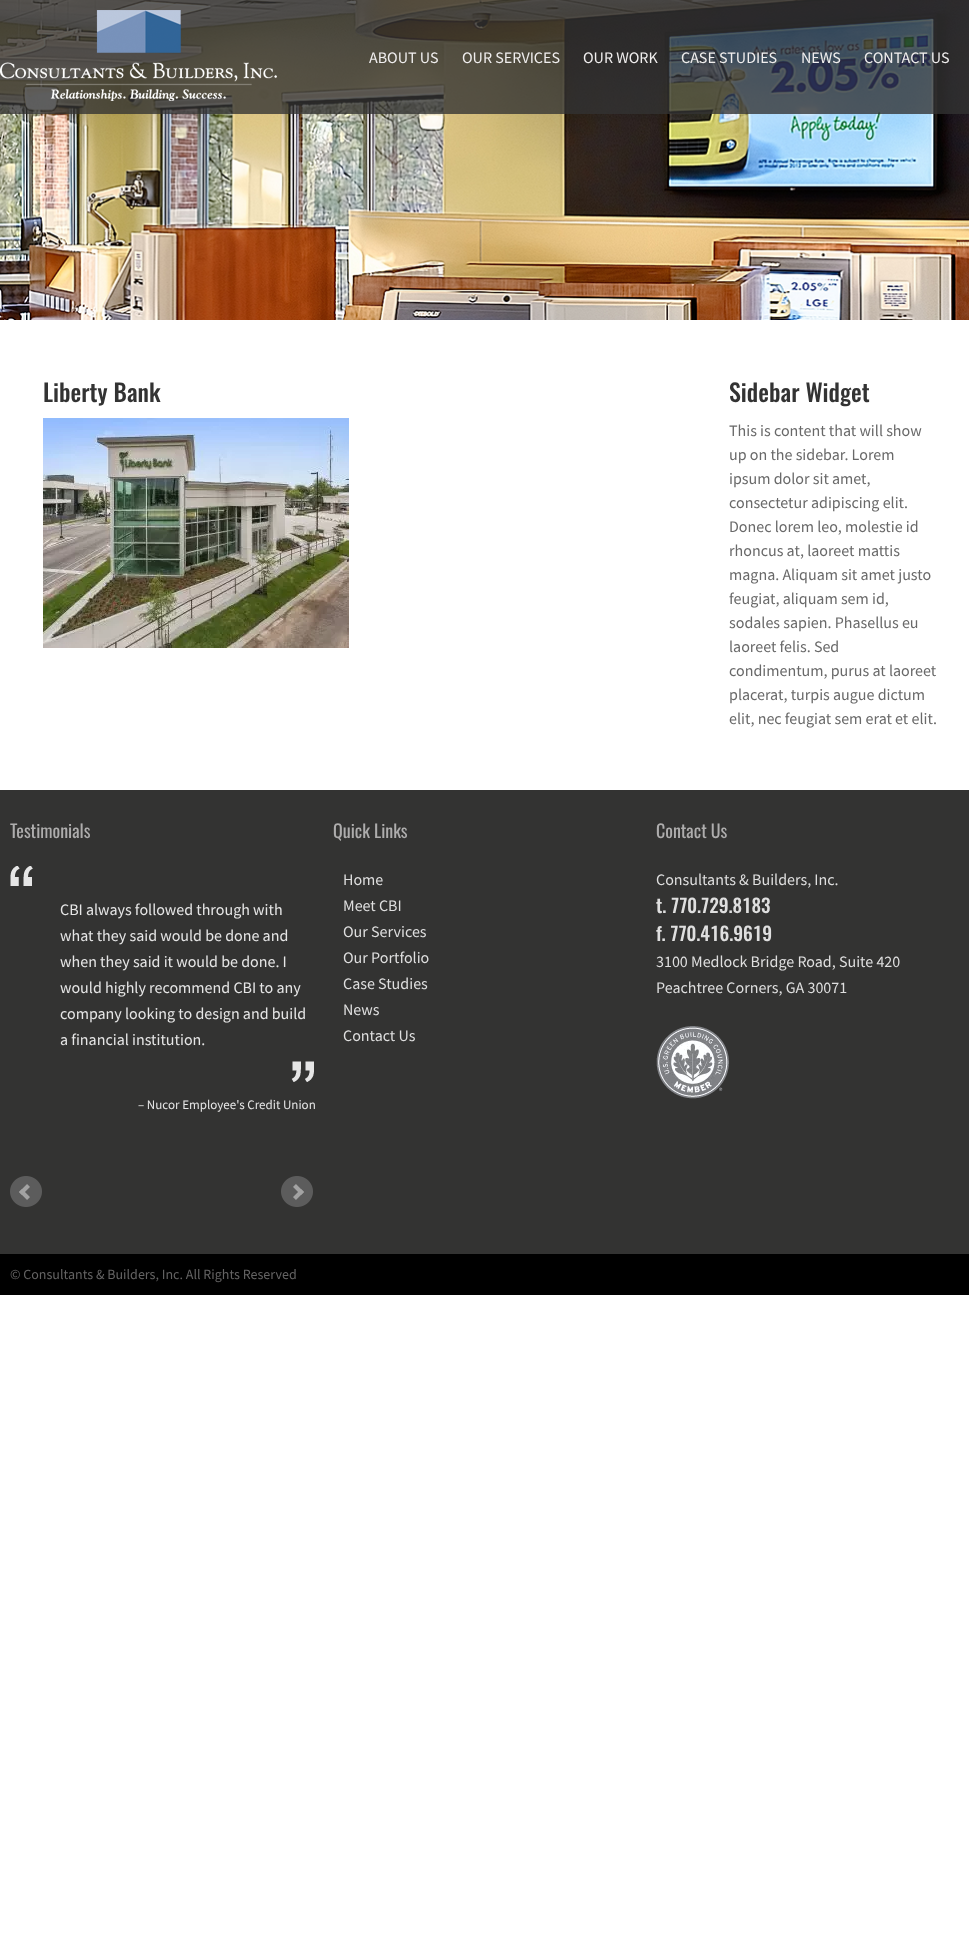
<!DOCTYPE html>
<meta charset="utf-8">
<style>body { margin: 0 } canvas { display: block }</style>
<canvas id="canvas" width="969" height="1947"></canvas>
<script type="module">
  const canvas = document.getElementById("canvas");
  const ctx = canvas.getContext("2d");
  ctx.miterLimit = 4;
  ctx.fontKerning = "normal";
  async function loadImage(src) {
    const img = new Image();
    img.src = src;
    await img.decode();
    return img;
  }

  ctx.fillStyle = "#ffffff";
  ctx.fillRect(0, 0, 969, 1947);
  ctx.drawImage(await loadImage("img1.png"), 0, 0, 969, 320);
  ctx.fillStyle = "rgba(51, 51, 51, 0.79)";
  ctx.fillRect(0, 0, 969, 114);
  ctx.drawImage(await loadImage("img2.png"), 0, 10, 277, 91);
  ctx.font = "16px Source Sans Pro";
  ctx.fillStyle = "#f0eeee";
  ctx.fillText("ABOUT US", 369, 63);
  ctx.fillText("OUR SERVICES", 462, 63);
  ctx.fillText("OUR WORK", 583, 63);
  ctx.fillText("CASE STUDIES", 681, 63);
  ctx.fillText("NEWS", 801, 63);
  ctx.fillText("CONTACT US", 864, 63);
  ctx.font = "500 24px Oswald";
  ctx.fillStyle = "#333333";
  ctx.fillText("Liberty Bank", 43, 402);
  ctx.drawImage(await loadImage("img3.png"), 43, 418, 306, 230);
  ctx.fillText("Sidebar Widget", 729, 402);
  ctx.font = "16px Source Sans Pro";
  ctx.fillStyle = "#696969";
  ctx.fillText("This is content that will show", 729, 436);
  ctx.fillText("up on the sidebar. Lorem", 729, 460);
  ctx.fillText("ipsum dolor sit amet,", 729, 484);
  ctx.fillText("consectetur adipiscing elit.", 729, 508);
  ctx.fillText("Donec lorem leo, molestie id", 729, 532);
  ctx.fillText("rhoncus at, laoreet mattis", 729, 556);
  ctx.fillText("magna. Aliquam sit amet justo", 729, 580);
  ctx.fillText("feugiat, aliquam sem id,", 729, 604);
  ctx.fillText("sodales sapien. Phasellus eu", 729, 628);
  ctx.fillText("laoreet felis. Sed", 729, 652);
  ctx.fillText("condimentum, purus at laoreet", 729, 676);
  ctx.fillText("placerat, turpis augue dictum", 729, 700);
  ctx.fillText("elit, nec feugiat sem erat et elit.", 729, 724);
  ctx.fillStyle = "#333332";
  ctx.fillRect(0, 790, 969, 464);
  ctx.font = "18px Oswald";
  ctx.fillStyle = "#aeadad";
  ctx.fillText("Testimonials", 10, 838);
  ctx.drawImage(await loadImage("img4.png"), 10, 866, 23, 20);
  ctx.drawImage(await loadImage("img5.png"), 291, 1061, 23, 21);
  ctx.font = "16px Source Sans Pro";
  ctx.fillStyle = "#e6e6e6";
  ctx.fillText("CBI always followed through with", 60, 915);
  ctx.fillText("what they said would be done and", 60, 941);
  ctx.fillText("when they said it would be done. I", 60, 967);
  ctx.fillText("would highly recommend CBI to any", 60, 993);
  ctx.fillText("company looking to design and build", 60, 1019);
  ctx.fillText("a financial institution.", 60, 1045);
  ctx.font = "13px Source Sans Pro";
  ctx.fillText("– Nucor Employee's Credit Union", 138, 1109);
  ctx.drawImage(await loadImage("img6.png"), 10, 1176, 32, 31);
  ctx.drawImage(await loadImage("img7.png"), 281, 1176, 32, 31);
  ctx.font = "18px Oswald";
  ctx.fillStyle = "#aeadad";
  ctx.fillText("Quick Links", 333, 838);
  ctx.font = "16px Source Sans Pro";
  ctx.fillStyle = "#dfdfdf";
  ctx.fillText("Home", 343, 885);
  ctx.fillText("Meet CBI", 343, 911);
  ctx.fillText("Our Services", 343, 937);
  ctx.fillText("Our Portfolio", 343, 963);
  ctx.fillText("Case Studies", 343, 989);
  ctx.fillText("News", 343, 1015);
  ctx.fillText("Contact Us", 343, 1041);
  ctx.font = "18px Oswald";
  ctx.fillStyle = "#aeadad";
  ctx.fillText("Contact Us", 656, 838);
  ctx.font = "16px Source Sans Pro";
  ctx.fillStyle = "#dfdfdf";
  ctx.fillText("Consultants & Builders, Inc.", 656, 885);
  ctx.font = "500 19px Oswald";
  ctx.fillText("t. 770.729.8183", 656, 913);
  ctx.fillText("f. 770.416.9619", 656, 941);
  ctx.font = "16px Source Sans Pro";
  ctx.fillText("3100 Medlock Bridge Road, Suite 420", 656, 967);
  ctx.fillText("Peachtree Corners, GA 30071", 656, 993);
  ctx.drawImage(await loadImage("img8.png"), 656, 1026, 73, 73);
  ctx.fillStyle = "#000000";
  ctx.fillRect(0, 1254, 969, 41);
  ctx.font = "14px Source Sans Pro";
  ctx.fillStyle = "#646363";
  ctx.fillText("© Consultants & Builders, Inc. All Rights Reserved", 10, 1279);
</script>
